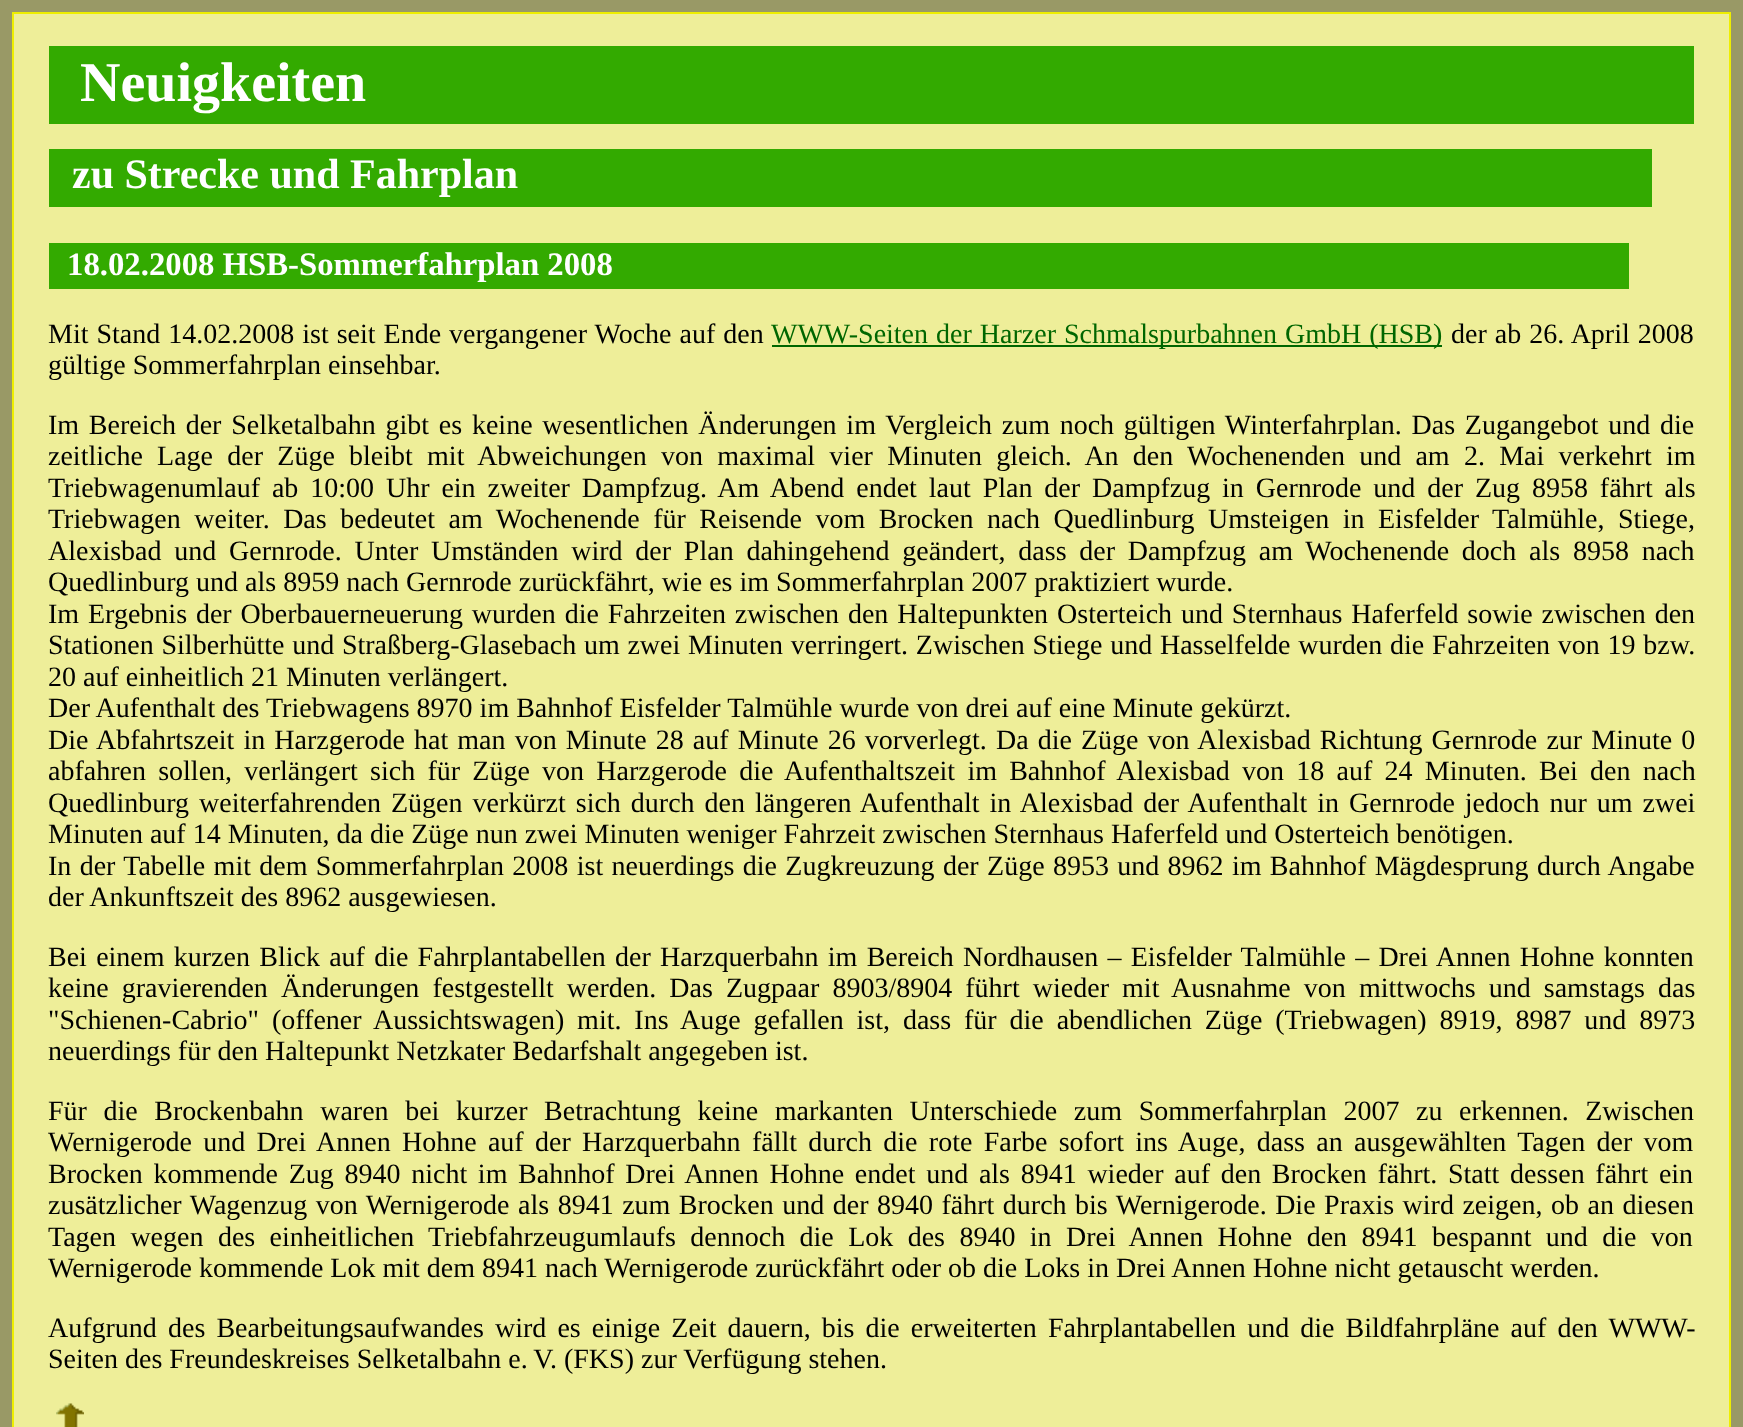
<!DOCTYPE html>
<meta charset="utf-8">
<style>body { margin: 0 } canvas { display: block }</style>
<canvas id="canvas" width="1743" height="1427"></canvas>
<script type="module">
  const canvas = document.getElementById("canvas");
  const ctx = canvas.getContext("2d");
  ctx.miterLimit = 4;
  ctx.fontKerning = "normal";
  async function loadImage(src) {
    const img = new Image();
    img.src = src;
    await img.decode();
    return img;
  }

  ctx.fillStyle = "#999966";
  ctx.fillRect(0, 0, 1743, 1427);
  ctx.fillStyle = "#eeee99";
  ctx.beginPath();
  ctx.rect(13, 13, 1717, 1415);
  ctx.fill();
  ctx.strokeStyle = "#eeee00";
  ctx.lineWidth = 2;
  ctx.stroke();
  ctx.fillStyle = "#33aa00";
  ctx.fillRect(49, 46, 1645, 78);
  ctx.font = "bold 56px Liberation Serif";
  ctx.fillStyle = "#ffffff";
  ctx.fillText("Neuigkeiten", 80, 101);
  ctx.fillStyle = "#33aa00";
  ctx.fillRect(49, 149, 1603, 58);
  ctx.font = "bold 42px Liberation Serif";
  ctx.fillStyle = "#ffffff";
  ctx.fillText("zu Strecke und Fahrplan", 72, 188);
  ctx.fillStyle = "#33aa00";
  ctx.fillRect(49, 243, 1580, 46);
  ctx.font = "bold 32.75px Liberation Serif";
  ctx.fillStyle = "#ffffff";
  ctx.fillText("18.02.2008 HSB-Sommerfahrplan 2008", 67, 275);
  ctx.wordSpacing = "1px";
  ctx.font = "28px Liberation Serif";
  ctx.fillStyle = "#000000";
  ctx.fillText("Mit Stand 14.02.2008 ist seit Ende vergangener Woche auf den", 48, 343);
  ctx.fillStyle = "#006600";
  ctx.fillRect(772, 345, 670, 2);
  ctx.fillText("WWW-Seiten der Harzer Schmalspurbahnen GmbH (HSB)", 771, 343);
  ctx.fillStyle = "#000000";
  ctx.fillText("der ab 26. April 2008", 1451, 343);
  ctx.wordSpacing = "0px";
  ctx.fillText("gültige Sommerfahrplan einsehbar.", 48, 374);
  ctx.wordSpacing = "2.75px";
  ctx.fillText("Im Bereich der Selketalbahn gibt es keine wesentlichen Änderungen im Vergleich zum noch gültigen Winterfahrplan. Das Zugangebot und die", 48, 434);
  ctx.wordSpacing = "7.25px";
  ctx.fillText("zeitliche Lage der Züge bleibt mit Abweichungen von maximal vier Minuten gleich. An den Wochenenden und am 2. Mai verkehrt im", 48, 465);
  ctx.wordSpacing = "4.9px";
  ctx.fillText("Triebwagenumlauf ab 10:00 Uhr ein zweiter Dampfzug. Am Abend endet laut Plan der Dampfzug in Gernrode und der Zug 8958 fährt als", 48, 497);
  ctx.wordSpacing = "6.5px";
  ctx.fillText("Triebwagen weiter. Das bedeutet am Wochenende für Reisende vom Brocken nach Quedlinburg Umsteigen in Eisfelder Talmühle, Stiege,", 48, 528);
  ctx.wordSpacing = "5.75px";
  ctx.fillText("Alexisbad und Gernrode. Unter Umständen wird der Plan dahingehend geändert, dass der Dampfzug am Wochenende doch als 8958 nach", 48, 560);
  ctx.wordSpacing = "0px";
  ctx.fillText("Quedlinburg und als 8959 nach Gernrode zurückfährt, wie es im Sommerfahrplan 2007 praktiziert wurde.", 48, 591);
  ctx.wordSpacing = "1.9px";
  ctx.fillText("Im Ergebnis der Oberbauerneuerung wurden die Fahrzeiten zwischen den Haltepunkten Osterteich und Sternhaus Haferfeld sowie zwischen den", 48, 623);
  ctx.wordSpacing = "0.75px";
  ctx.fillText("Stationen Silberhütte und Straßberg-Glasebach um zwei Minuten verringert. Zwischen Stiege und Hasselfelde wurden die Fahrzeiten von 19 bzw.", 48, 654);
  ctx.wordSpacing = "0px";
  ctx.fillText("20 auf einheitlich 21 Minuten verlängert.", 48, 686);
  ctx.fillText("Der Aufenthalt des Triebwagens 8970 im Bahnhof Eisfelder Talmühle wurde von drei auf eine Minute gekürzt.", 48, 717);
  ctx.wordSpacing = "2.1px";
  ctx.fillText("Die Abfahrtszeit in Harzgerode hat man von Minute 28 auf Minute 26 vorverlegt. Da die Züge von Alexisbad Richtung Gernrode zur Minute 0", 48, 749);
  ctx.wordSpacing = "5.25px";
  ctx.fillText("abfahren sollen, verlängert sich für Züge von Harzgerode die Aufenthaltszeit im Bahnhof Alexisbad von 18 auf 24 Minuten. Bei den nach", 48, 780);
  ctx.wordSpacing = "3px";
  ctx.fillText("Quedlinburg weiterfahrenden Zügen verkürzt sich durch den längeren Aufenthalt in Alexisbad der Aufenthalt in Gernrode jedoch nur um zwei", 48, 812);
  ctx.wordSpacing = "0px";
  ctx.fillText("Minuten auf 14 Minuten, da die Züge nun zwei Minuten weniger Fahrzeit zwischen Sternhaus Haferfeld und Osterteich benötigen.", 48, 843);
  ctx.wordSpacing = "1.35px";
  ctx.fillText("In der Tabelle mit dem Sommerfahrplan 2008 ist neuerdings die Zugkreuzung der Züge 8953 und 8962 im Bahnhof Mägdesprung durch Angabe", 48, 875);
  ctx.wordSpacing = "0px";
  ctx.fillText("der Ankunftszeit des 8962 ausgewiesen.", 48, 906);
  ctx.wordSpacing = "2.25px";
  ctx.fillText("Bei einem kurzen Blick auf die Fahrplantabellen der Harzquerbahn im Bereich Nordhausen – Eisfelder Talmühle – Drei Annen Hohne konnten", 48, 966);
  ctx.wordSpacing = "6.1px";
  ctx.fillText("keine gravierenden Änderungen festgestellt werden. Das Zugpaar 8903/8904 führt wieder mit Ausnahme von mittwochs und samstags das", 48, 997);
  ctx.wordSpacing = "5.9px";
  ctx.fillText("\"Schienen-Cabrio\" (offener Aussichtswagen) mit. Ins Auge gefallen ist, dass für die abendlichen Züge (Triebwagen) 8919, 8987 und 8973", 48, 1029);
  ctx.wordSpacing = "0px";
  ctx.fillText("neuerdings für den Haltepunkt Netzkater Bedarfshalt angegeben ist.", 48, 1060);
  ctx.wordSpacing = "9.6px";
  ctx.fillText("Für die Brockenbahn waren bei kurzer Betrachtung keine markanten Unterschiede zum Sommerfahrplan 2007 zu erkennen. Zwischen", 48, 1120);
  ctx.wordSpacing = "4.3px";
  ctx.fillText("Wernigerode und Drei Annen Hohne auf der Harzquerbahn fällt durch die rote Farbe sofort ins Auge, dass an ausgewählten Tagen der vom", 48, 1151);
  ctx.wordSpacing = "3.7px";
  ctx.fillText("Brocken kommende Zug 8940 nicht im Bahnhof Drei Annen Hohne endet und als 8941 wieder auf den Brocken fährt. Statt dessen fährt ein", 48, 1183);
  ctx.wordSpacing = "1.5px";
  ctx.fillText("zusätzlicher Wagenzug von Wernigerode als 8941 zum Brocken und der 8940 fährt durch bis Wernigerode. Die Praxis wird zeigen, ob an diesen", 48, 1214);
  ctx.wordSpacing = "7.4px";
  ctx.fillText("Tagen wegen des einheitlichen Triebfahrzeugumlaufs dennoch die Lok des 8940 in Drei Annen Hohne den 8941 bespannt und die von", 48, 1246);
  ctx.wordSpacing = "0px";
  ctx.fillText("Wernigerode kommende Lok mit dem 8941 nach Wernigerode zurückfährt oder ob die Loks in Drei Annen Hohne nicht getauscht werden.", 48, 1277);
  ctx.wordSpacing = "4.1px";
  ctx.fillText("Aufgrund des Bearbeitungsaufwandes wird es einige Zeit dauern, bis die erweiterten Fahrplantabellen und die Bildfahrpläne auf den WWW-", 48, 1337);
  ctx.wordSpacing = "0px";
  ctx.fillText("Seiten des Freundeskreises Selketalbahn e. V. (FKS) zur Verfügung stehen.", 48, 1368);
  ctx.drawImage(await loadImage("img1.png"), 56, 1403, 28, 24);
</script>
